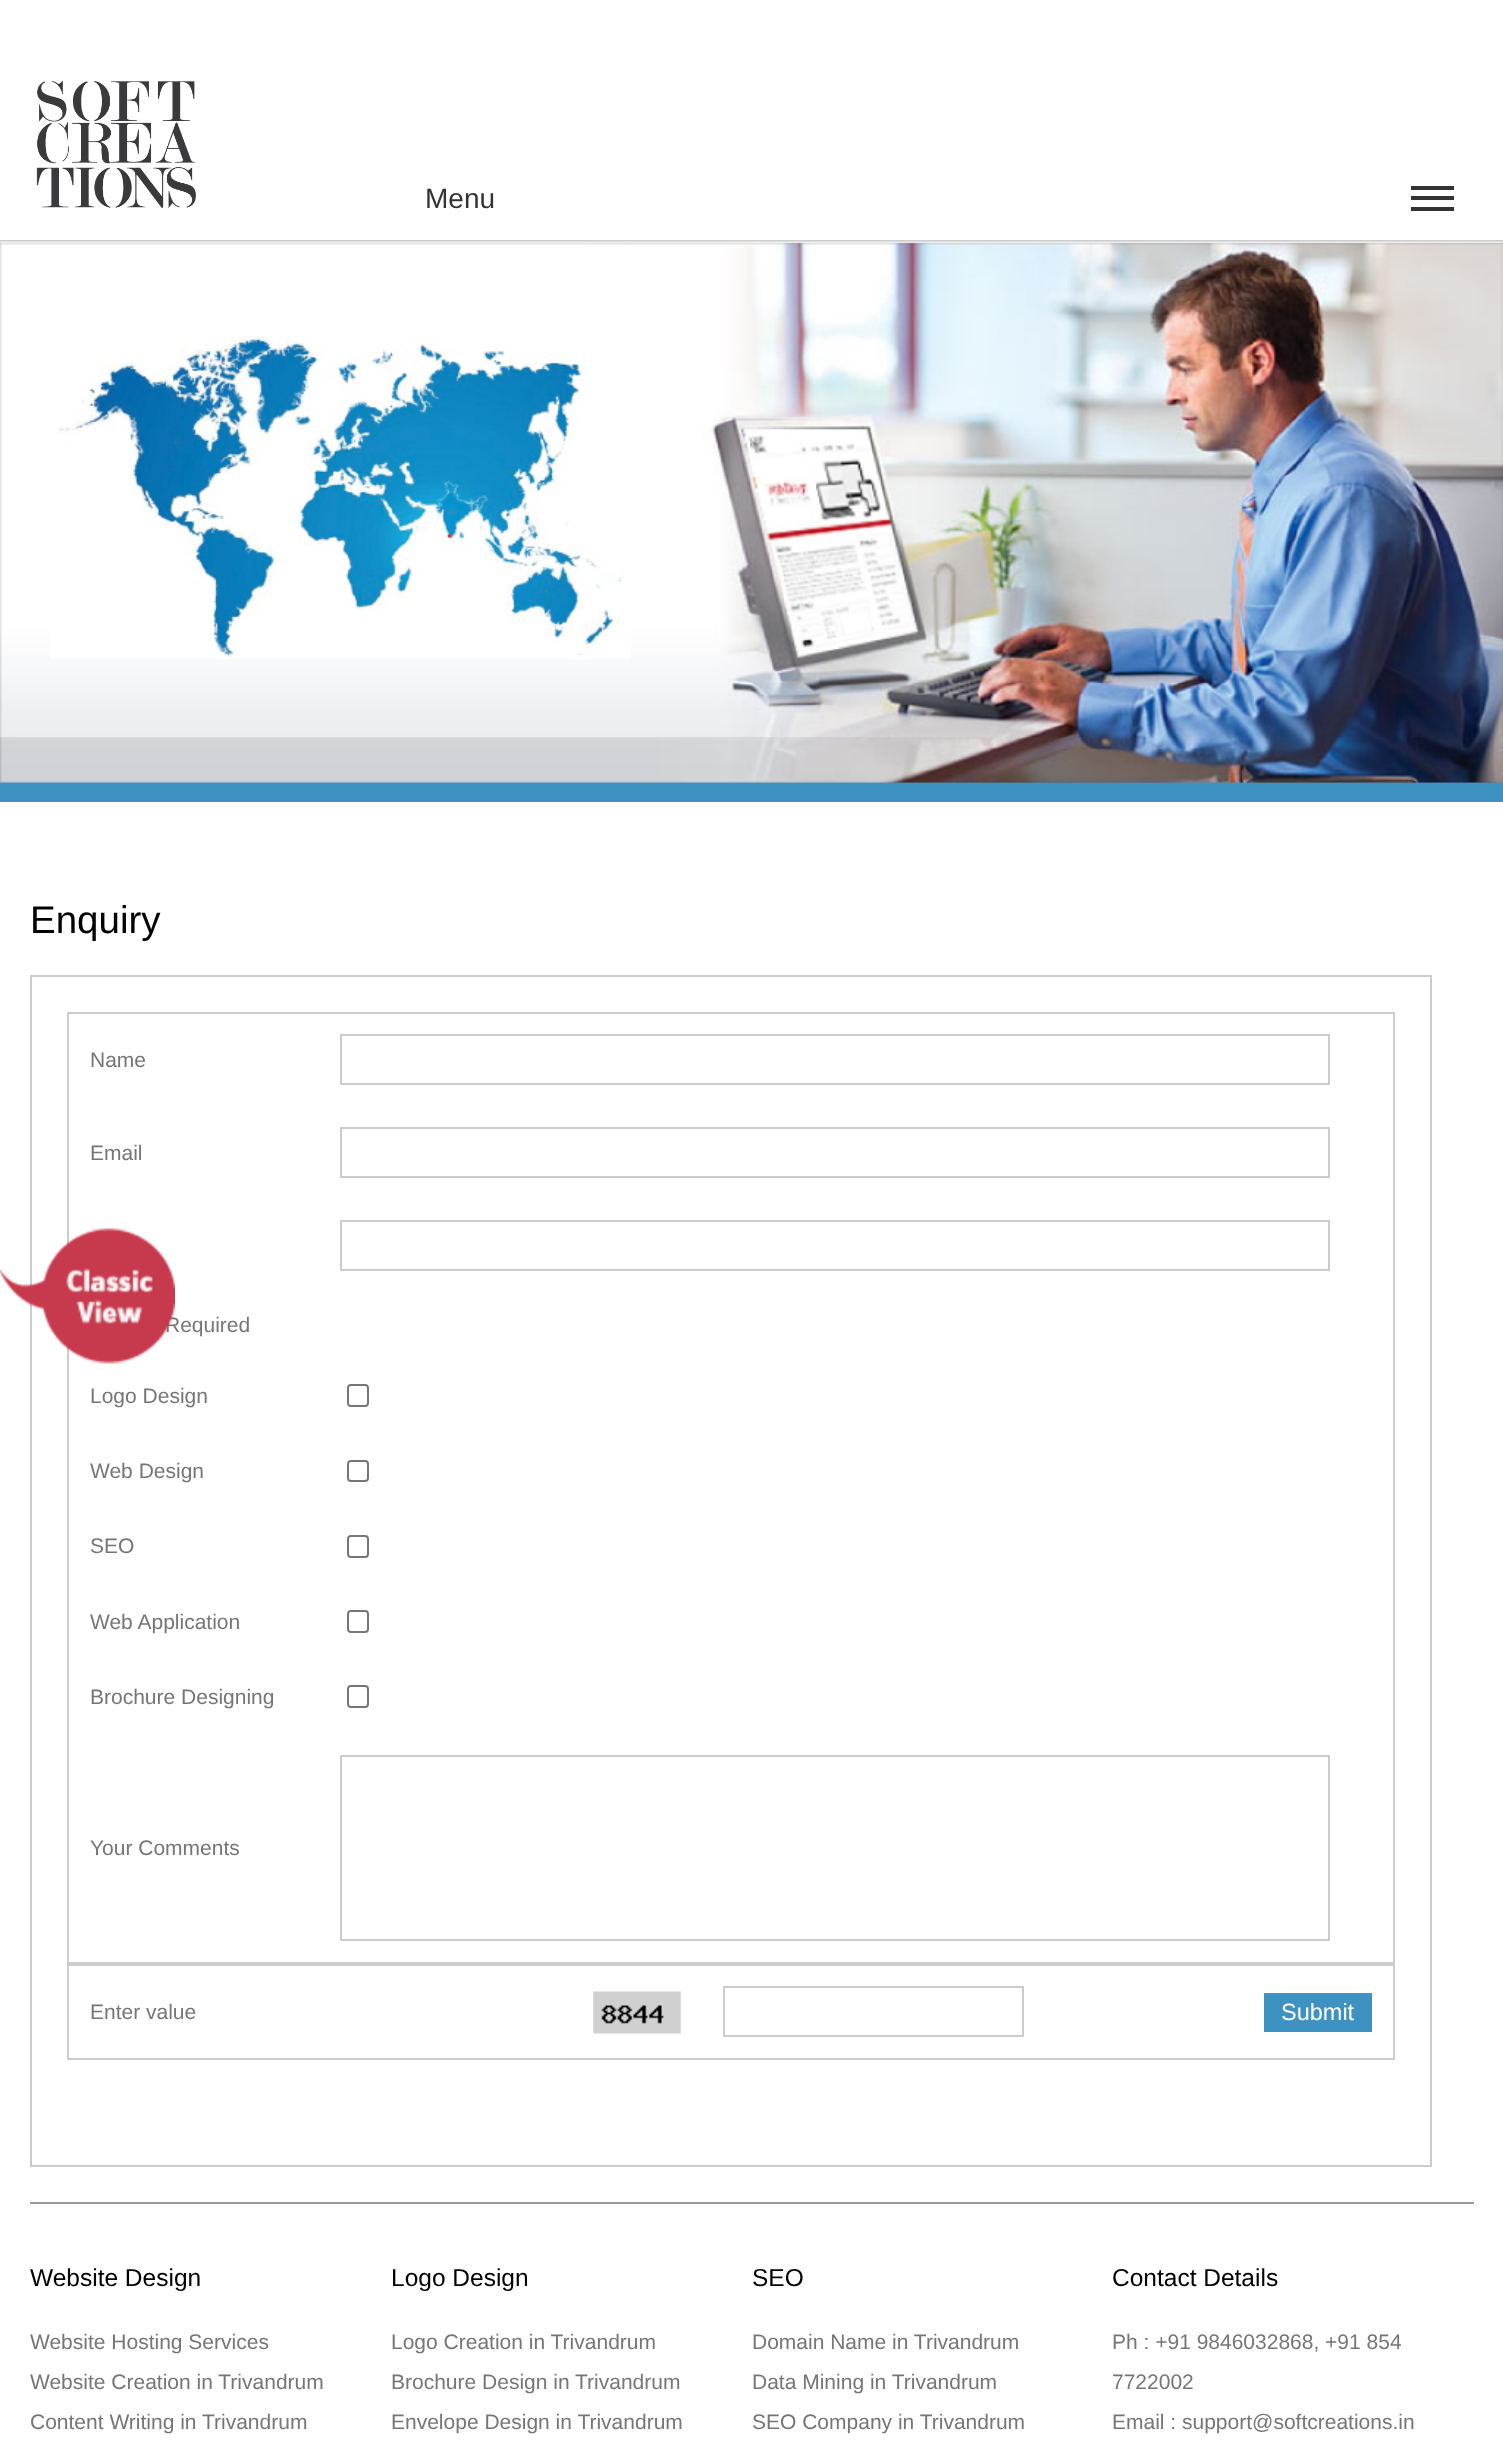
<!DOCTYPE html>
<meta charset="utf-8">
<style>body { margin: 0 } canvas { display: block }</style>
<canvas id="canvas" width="1503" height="2457"></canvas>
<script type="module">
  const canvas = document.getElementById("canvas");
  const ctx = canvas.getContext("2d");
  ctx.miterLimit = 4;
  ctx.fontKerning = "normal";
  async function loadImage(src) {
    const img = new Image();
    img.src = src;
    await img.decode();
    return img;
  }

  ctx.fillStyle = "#ffffff";
  ctx.fillRect(0, 0, 1503, 2457);
  ctx.fillStyle = "#cccccc";
  ctx.fillRect(0, 240, 1503, 2);
  ctx.drawImage(await loadImage("img1.png"), 36, 80, 160, 128);
  ctx.font = "28px Liberation Sans";
  ctx.fillStyle = "#333333";
  ctx.fillText("Menu", 425, 208);
  ctx.fillRect(1411, 186, 43, 4);
  ctx.fillRect(1411, 196, 43, 4);
  ctx.fillRect(1411, 207, 43, 4);
  ctx.drawImage(await loadImage("img2.png"), 0, 241, 1503, 543);
  ctx.fillStyle = "#3e92c1";
  ctx.fillRect(0, 784, 1503, 18);
  ctx.font = "38.5px Liberation Sans";
  ctx.fillStyle = "#000000";
  ctx.fillText("Enquiry", 30, 933);
  ctx.strokeStyle = "#cccccc";
  ctx.lineWidth = 2;
  ctx.strokeRect(31, 976, 1400, 1190);
  ctx.fillStyle = "#cccccc";
  ctx.fillRect(67, 1012, 1328, 2);
  ctx.fillRect(1393, 1012, 2, 952);
  ctx.fillRect(67, 1962, 1328, 4);
  ctx.fillRect(67, 1012, 2, 952);
  ctx.font = "21px Liberation Sans";
  ctx.fillStyle = "#767676";
  ctx.fillText("Name", 90, 1067);
  ctx.strokeRect(341, 1035, 988, 49);
  ctx.fillText("Email", 90, 1160);
  ctx.strokeRect(341, 1128, 988, 49);
  ctx.strokeRect(341, 1221, 988, 49);
  ctx.fillText("Required", 165, 1332);
  ctx.fillText("Logo Design", 90, 1403);
  ctx.beginPath();
  ctx.roundRect(348, 1385, 20, 21, 3);
  ctx.strokeStyle = "#767676";
  ctx.stroke();
  ctx.fillText("Web Design", 90, 1478);
  ctx.beginPath();
  ctx.roundRect(348, 1461, 20, 20, 3);
  ctx.stroke();
  ctx.fillText("SEO", 90, 1553);
  ctx.beginPath();
  ctx.roundRect(348, 1536, 20, 21, 3);
  ctx.stroke();
  ctx.fillText("Web Application", 90, 1629);
  ctx.beginPath();
  ctx.roundRect(348, 1611, 20, 21, 3);
  ctx.stroke();
  ctx.fillText("Brochure Designing", 90, 1704);
  ctx.beginPath();
  ctx.roundRect(348, 1686, 20, 21, 3);
  ctx.stroke();
  ctx.fillText("Your Comments", 90, 1855);
  ctx.strokeStyle = "#cccccc";
  ctx.strokeRect(341, 1756, 988, 184);
  ctx.fillStyle = "#cccccc";
  ctx.fillRect(1393, 1964, 2, 96);
  ctx.fillRect(67, 2058, 1328, 2);
  ctx.fillRect(67, 1964, 2, 96);
  ctx.fillStyle = "#767676";
  ctx.fillText("Enter value", 90, 2019);
  ctx.drawImage(await loadImage("img3.png"), 593, 1991, 88, 43);
  ctx.strokeRect(724, 1987, 299, 49);
  ctx.fillStyle = "#3e92c1";
  ctx.fillRect(1264, 1993, 108, 39);
  ctx.font = "23.5px Liberation Sans";
  ctx.fillStyle = "#ffffff";
  ctx.fillText("Submit", 1281, 2020);
  ctx.fillStyle = "#999999";
  ctx.fillRect(30, 2202, 1444, 2);
  ctx.font = "24.5px Liberation Sans";
  ctx.fillStyle = "#000000";
  ctx.fillText("Website Design", 30, 2286);
  ctx.font = "21px Liberation Sans";
  ctx.fillStyle = "#767676";
  ctx.fillText("Website Hosting Services", 30, 2349);
  ctx.fillText("Website Creation in Trivandrum", 30, 2389);
  ctx.fillText("Content Writing in Trivandrum", 30, 2429);
  ctx.font = "24.5px Liberation Sans";
  ctx.fillStyle = "#000000";
  ctx.fillText("Logo Design", 391, 2286);
  ctx.font = "21px Liberation Sans";
  ctx.fillStyle = "#767676";
  ctx.fillText("Logo Creation in Trivandrum", 391, 2349);
  ctx.fillText("Brochure Design in Trivandrum", 391, 2389);
  ctx.fillText("Envelope Design in Trivandrum", 391, 2429);
  ctx.font = "24.5px Liberation Sans";
  ctx.fillStyle = "#000000";
  ctx.fillText("SEO", 752, 2286);
  ctx.font = "21px Liberation Sans";
  ctx.fillStyle = "#767676";
  ctx.fillText("Domain Name in Trivandrum", 752, 2349);
  ctx.fillText("Data Mining in Trivandrum", 752, 2389);
  ctx.fillText("SEO Company in Trivandrum", 752, 2429);
  ctx.font = "24.5px Liberation Sans";
  ctx.fillStyle = "#000000";
  ctx.fillText("Contact Details", 1112, 2286);
  ctx.font = "21px Liberation Sans";
  ctx.fillStyle = "#767676";
  ctx.fillText("Ph : +91 9846032868, +91 854", 1112, 2349);
  ctx.fillText("7722002", 1112, 2389);
  ctx.fillText("Email : support@softcreations.in", 1112, 2429);
  ctx.drawImage(await loadImage("img4.png"), 0, 1228, 175, 136);
</script>
